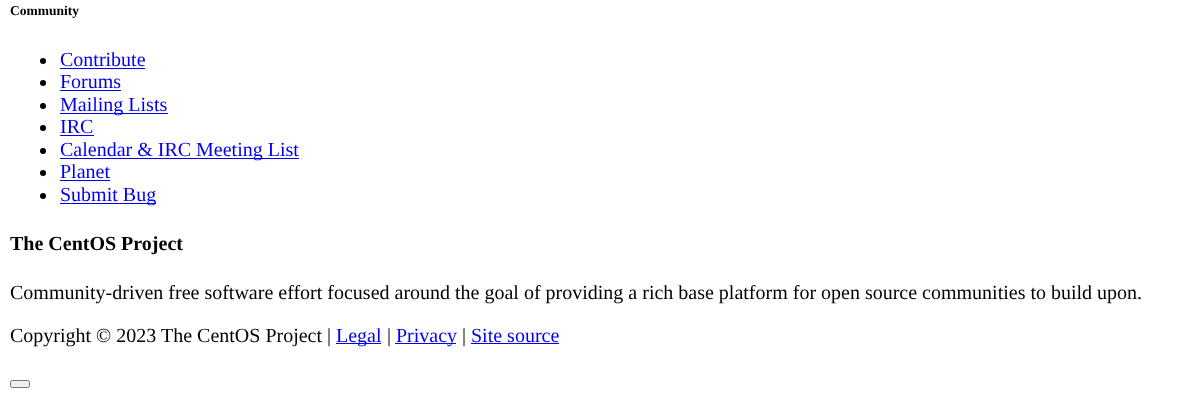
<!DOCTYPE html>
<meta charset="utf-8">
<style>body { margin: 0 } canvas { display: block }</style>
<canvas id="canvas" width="1183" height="398"></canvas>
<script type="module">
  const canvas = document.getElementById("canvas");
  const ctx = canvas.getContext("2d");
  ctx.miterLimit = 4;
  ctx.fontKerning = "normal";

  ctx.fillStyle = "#ffffff";
  ctx.fillRect(0, 0, 1183, 398);
  ctx.font = "bold 13.5px Liberation Serif";
  ctx.fillStyle = "#000000";
  ctx.fillText("Community", 10, 15);
  ctx.beginPath();
  ctx.arc(43, 61, 3, 0, Math.PI * 2);
  ctx.fill();
  ctx.font = "20px Liberation Serif";
  ctx.fillStyle = "#0000ee";
  ctx.fillText("Contribute", 60, 66);
  ctx.fillRect(60, 68, 85, 1);
  ctx.fillStyle = "#000000";
  ctx.beginPath();
  ctx.arc(43, 83, 3, 0, Math.PI * 2);
  ctx.fill();
  ctx.fillStyle = "#0000ee";
  ctx.fillText("Forums", 60, 88);
  ctx.fillRect(60, 90, 61, 1);
  ctx.fillStyle = "#000000";
  ctx.beginPath();
  ctx.arc(43, 106, 3, 0, Math.PI * 2);
  ctx.fill();
  ctx.fillStyle = "#0000ee";
  ctx.fillRect(60, 113, 108, 1);
  ctx.fillText("Mailing Lists", 60, 111);
  ctx.fillStyle = "#000000";
  ctx.beginPath();
  ctx.arc(43, 128, 3, 0, Math.PI * 2);
  ctx.fill();
  ctx.fillStyle = "#0000ee";
  ctx.fillText("IRC", 60, 133);
  ctx.fillRect(60, 135, 34, 1);
  ctx.fillStyle = "#000000";
  ctx.beginPath();
  ctx.arc(43, 151, 3, 0, Math.PI * 2);
  ctx.fill();
  ctx.fillStyle = "#0000ee";
  ctx.fillRect(60, 158, 239, 1);
  ctx.fillText("Calendar & IRC Meeting List", 60, 156);
  ctx.fillStyle = "#000000";
  ctx.beginPath();
  ctx.arc(43, 173, 3, 0, Math.PI * 2);
  ctx.fill();
  ctx.fillStyle = "#0000ee";
  ctx.fillText("Planet", 60, 178);
  ctx.fillRect(60, 180, 50, 1);
  ctx.fillStyle = "#000000";
  ctx.beginPath();
  ctx.arc(43, 196, 3, 0, Math.PI * 2);
  ctx.fill();
  ctx.fillStyle = "#0000ee";
  ctx.fillRect(60, 203, 96, 1);
  ctx.fillText("Submit Bug", 60, 201);
  ctx.font = "bold 20px Liberation Serif";
  ctx.fillStyle = "#000000";
  ctx.fillText("The CentOS Project", 10, 250);
  ctx.font = "20px Liberation Serif";
  ctx.fillText("Community-driven free software effort focused around the goal of providing a rich base platform for open source communities to build upon.", 10, 299);
  ctx.fillText("Copyright © 2023 The CentOS Project |", 10, 342);
  ctx.fillStyle = "#0000ee";
  ctx.fillRect(336, 343, 45, 1);
  ctx.fillText("Legal", 336, 342);
  ctx.fillStyle = "#000000";
  ctx.fillText("|", 387, 342);
  ctx.fillStyle = "#0000ee";
  ctx.fillRect(395, 343, 61, 1);
  ctx.fillText("Privacy", 396, 342);
  ctx.fillStyle = "#000000";
  ctx.fillText("|", 462, 342);
  ctx.fillStyle = "#0000ee";
  ctx.fillText("Site source", 471, 342);
  ctx.fillRect(471, 343, 88, 1);
  ctx.fillStyle = "#efefef";
  ctx.beginPath();
  ctx.roundRect(10.5, 380.5, 19, 7, 2);
  ctx.fill();
  ctx.strokeStyle = "#767676";
  ctx.stroke();
</script>
